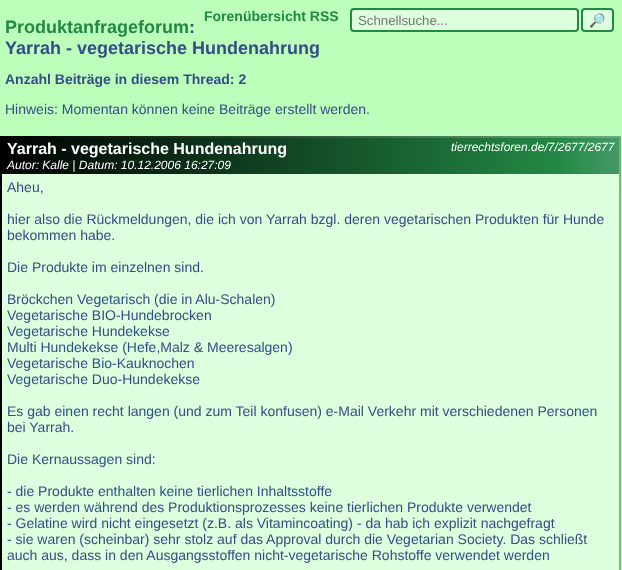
<!DOCTYPE html>
<meta charset="utf-8">
<style>body { margin: 0 } canvas { display: block }</style>
<canvas id="canvas" width="622" height="570"></canvas>
<script type="module">
  const canvas = document.getElementById("canvas");
  const ctx = canvas.getContext("2d");
  ctx.miterLimit = 4;
  ctx.fontKerning = "normal";
  async function loadImage(src) {
    const img = new Image();
    img.src = src;
    await img.decode();
    return img;
  }
  let gradient;

  ctx.fillStyle = "#bbffbb";
  ctx.fillRect(0, 0, 622, 570);
  ctx.font = "bold 14px Liberation Sans";
  ctx.fillStyle = "#228844";
  ctx.fillText("Forenübersicht RSS", 204, 21);
  ctx.fillStyle = "#ddffdd";
  ctx.beginPath();
  ctx.roundRect(351, 9, 227, 22, 3);
  ctx.fill();
  ctx.strokeStyle = "#228844";
  ctx.lineWidth = 2;
  ctx.stroke();
  ctx.font = "13.25px Liberation Sans";
  ctx.fillStyle = "#757575";
  ctx.fillText("Schnellsuche...", 358, 25);
  ctx.fillStyle = "#ddffdd";
  ctx.beginPath();
  ctx.roundRect(582, 9, 31, 22, 3);
  ctx.fill();
  ctx.stroke();
  ctx.font = "13.25px Noto Color Emoji";
  ctx.fillStyle = "#000000";
  ctx.fillText("🔎", 589, 25);
  ctx.font = "bold 18px Liberation Sans";
  ctx.fillStyle = "#228844";
  ctx.fillText("Produktanfrageforum", 5, 33);
  ctx.fillStyle = "#344d88";
  ctx.fillText(":", 189, 33);
  ctx.fillText("Yarrah - vegetarische Hundenahrung", 5, 54);
  ctx.font = "bold 14px Liberation Sans";
  ctx.fillText("Anzahl Beiträge in diesem Thread: 2", 5, 84);
  ctx.font = "14px Liberation Sans";
  ctx.fillText("Hinweis: Momentan können keine Beiträge erstellt werden.", 5, 114);
  ctx.fillStyle = "#000000";
  ctx.fillRect(0, 136, 2, 434);
  ctx.fillStyle = "#ddffdd";
  ctx.fillRect(2, 174, 617, 396);
  ctx.drawImage(await loadImage("img1.png"), 2, 136, 619, 434);
  gradient = ctx.createLinearGradient(2, 156, 619, 156);
  gradient.addColorStop(0, "#000000");
  gradient.addColorStop(0.9, "#228844");
  gradient.addColorStop(1, "#449966");
  ctx.fillStyle = gradient;
  ctx.fillRect(2, 138, 617, 36);
  ctx.font = "bold 16px Liberation Sans";
  ctx.fillStyle = "#ffffff";
  ctx.fillText("Yarrah - vegetarische Hundenahrung", 7, 154);
  ctx.font = "italic 12px Liberation Sans";
  ctx.fillText("tierrechtsforen.de/7/2677/2677", 451, 151);
  ctx.fillText("Autor: Kalle | Datum: 10.12.2006 16:27:09", 7, 169);
  ctx.font = "14px Liberation Sans";
  ctx.fillStyle = "#344d88";
  ctx.fillText("Aheu,", 7, 192);
  ctx.fillText("hier also die Rückmeldungen, die ich von Yarrah bzgl. deren vegetarischen Produkten für Hunde", 7, 224);
  ctx.fillText("bekommen habe.", 7, 240);
  ctx.fillText("Die Produkte im einzelnen sind.", 7, 272);
  ctx.fillText("Bröckchen Vegetarisch (die in Alu-Schalen)", 7, 304);
  ctx.fillText("Vegetarische BIO-Hundebrocken", 7, 320);
  ctx.fillText("Vegetarische Hundekekse", 7, 336);
  ctx.fillText("Multi Hundekekse (Hefe,Malz & Meeresalgen)", 7, 352);
  ctx.fillText("Vegetarische Bio-Kauknochen", 7, 368);
  ctx.fillText("Vegetarische Duo-Hundekekse", 7, 384);
  ctx.fillText("Es gab einen recht langen (und zum Teil konfusen) e-Mail Verkehr mit verschiedenen Personen", 7, 416);
  ctx.fillText("bei Yarrah.", 7, 432);
  ctx.fillText("Die Kernaussagen sind:", 7, 464);
  ctx.fillText("- die Produkte enthalten keine tierlichen Inhaltsstoffe", 7, 496);
  ctx.fillText("- es werden während des Produktionsprozesses keine tierlichen Produkte verwendet", 7, 512);
  ctx.fillText("- Gelatine wird nicht eingesetzt (z.B. als Vitamincoating) - da hab ich explizit nachgefragt", 7, 528);
  ctx.fillText("- sie waren (scheinbar) sehr stolz auf das Approval durch die Vegetarian Society. Das schließt", 7, 544);
  ctx.fillText("auch aus, dass in den Ausgangsstoffen nicht-vegetarische Rohstoffe verwendet werden", 7, 560);
</script>
